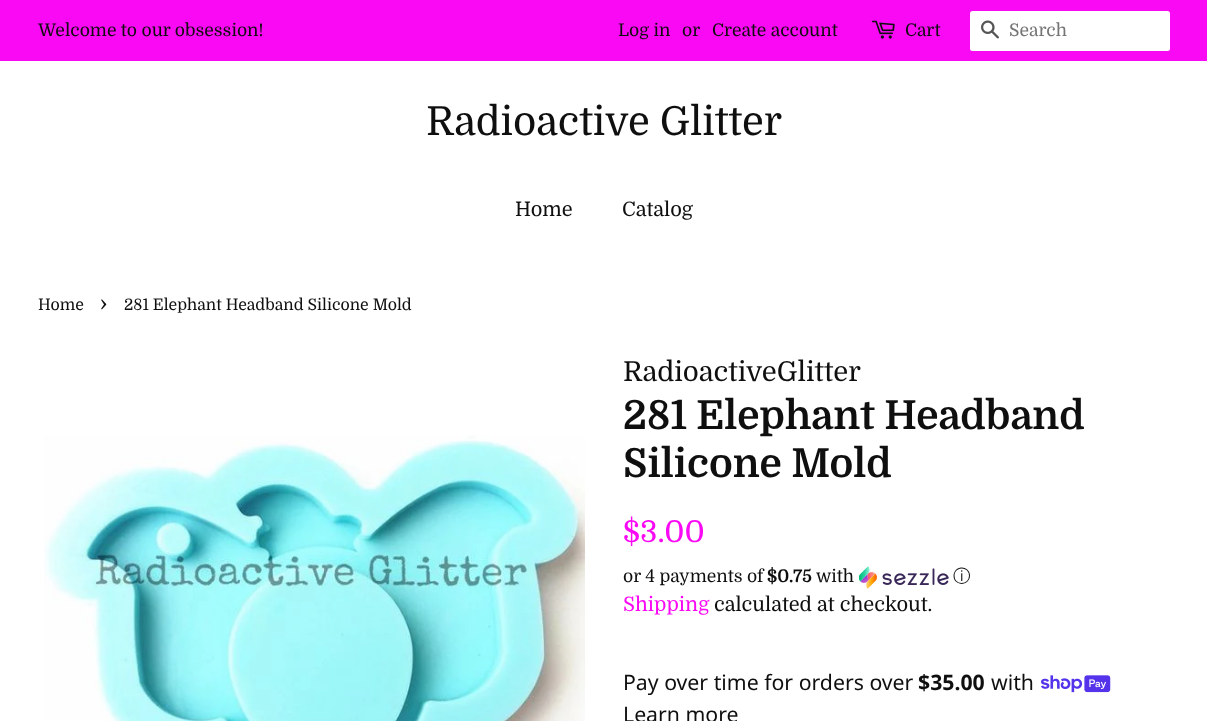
<!DOCTYPE html>
<meta charset="utf-8">
<style>body { margin: 0 } canvas { display: block }</style>
<canvas id="canvas" width="1207" height="721"></canvas>
<script type="module">
  const canvas = document.getElementById("canvas");
  const ctx = canvas.getContext("2d");
  ctx.miterLimit = 4;
  ctx.fontKerning = "normal";
  async function loadImage(src) {
    const img = new Image();
    img.src = src;
    await img.decode();
    return img;
  }

  ctx.fillStyle = "#ffffff";
  ctx.fillRect(0, 0, 1207, 721);
  ctx.fillStyle = "#fa09f4";
  ctx.fillRect(0, 0, 1207, 61);
  ctx.font = "17.5px Domine";
  ctx.fillStyle = "#0f0f0f";
  ctx.fillText("Welcome to our obsession!", 38, 36);
  ctx.fillText("Log in", 618, 36);
  ctx.fillText("or", 682, 36);
  ctx.fillText("Create account", 712, 36);
  ctx.drawImage(await loadImage("img1.png"), 871, 20, 24, 19);
  ctx.fillText("Cart", 905, 36);
  ctx.fillStyle = "#ffffff";
  ctx.beginPath();
  ctx.roundRect(970, 11, 200, 40, 2.5);
  ctx.fill();
  ctx.drawImage(await loadImage("img2.png"), 981, 20, 18, 19);
  ctx.fillStyle = "#757575";
  ctx.fillText("Search", 1009, 36);
  ctx.font = "40px Domine";
  ctx.fillStyle = "#0f0f0f";
  ctx.fillText("Radioactive Glitter", 426, 135);
  ctx.font = "20px Domine";
  ctx.fillText("Home", 515, 216);
  ctx.fillText("Catalog", 622, 216);
  ctx.font = "15.9px Domine";
  ctx.fillText("Home", 38, 310);
  ctx.font = "22px Domine";
  ctx.fillText("›", 100, 310);
  ctx.font = "15.9px Domine";
  ctx.fillText("281 Elephant Headband Silicone Mold", 124, 310);
  ctx.drawImage(await loadImage("img3.png"), 44, 435, 541, 286);
  ctx.font = "27.5px Domine";
  ctx.fillText("RadioactiveGlitter", 623, 381);
  ctx.font = "bold 40px Domine";
  ctx.fillText("281 Elephant Headband", 623, 429);
  ctx.fillText("Silicone Mold", 623, 477);
  ctx.font = "30px Domine";
  ctx.fillStyle = "#fa09f4";
  ctx.fillText("$3.00", 623, 542);
  ctx.font = "17.5px Domine";
  ctx.fillStyle = "#0f0f0f";
  ctx.fillText("or 4 payments of", 623, 582);
  ctx.font = "bold 17.5px Domine";
  ctx.fillText("$0.75", 767, 582);
  ctx.font = "17.5px Domine";
  ctx.fillText("with", 816, 582);
  ctx.drawImage(await loadImage("img4.png"), 859, 566, 90, 23);
  ctx.font = "500 17.5px WenQuanYi Zen Hei";
  ctx.fillText("ⓘ", 953, 582);
  ctx.font = "20px Domine";
  ctx.fillStyle = "#fa09f4";
  ctx.fillText("Shipping", 623, 611);
  ctx.fillStyle = "#0f0f0f";
  ctx.fillText("calculated at checkout.", 714, 611);
  ctx.font = "21.25px Noto Sans";
  ctx.fillText("Pay over time for orders over", 623, 690);
  ctx.font = "bold 21.25px Noto Sans";
  ctx.fillText("$35.00", 918, 690);
  ctx.font = "21.25px Noto Sans";
  ctx.fillText("with", 991, 690);
  ctx.drawImage(await loadImage("img5.png"), 1041, 675, 70, 18);
  ctx.fillText("Learn more", 623, 722);
</script>
